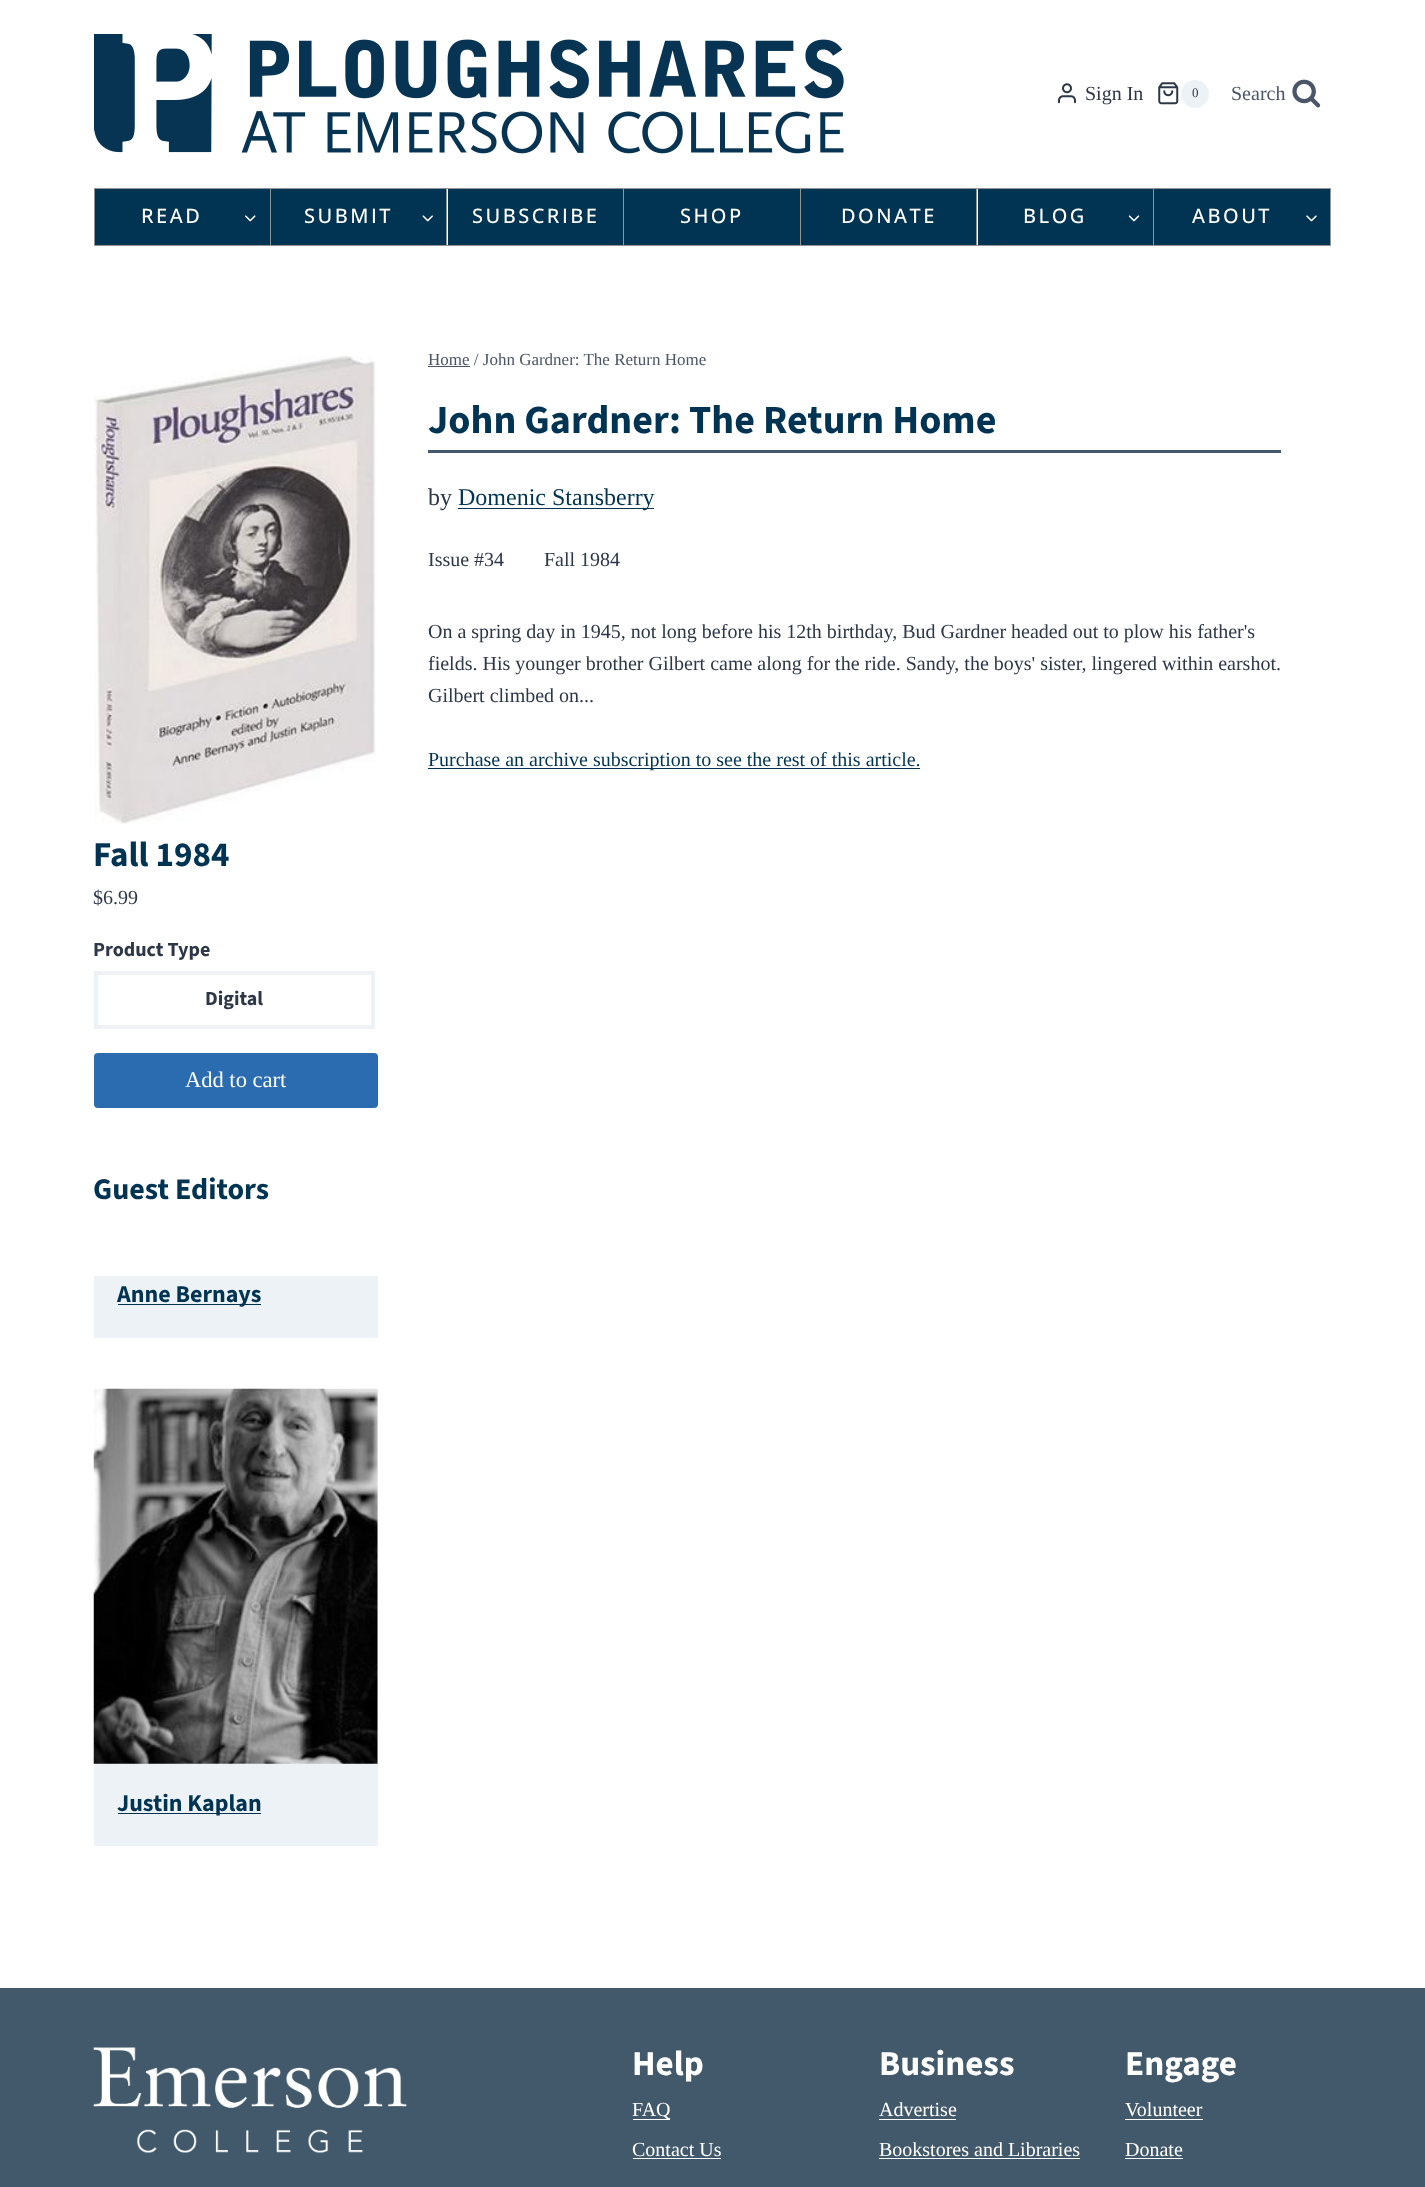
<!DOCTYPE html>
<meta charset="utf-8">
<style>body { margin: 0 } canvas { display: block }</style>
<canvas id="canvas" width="1425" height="2187"></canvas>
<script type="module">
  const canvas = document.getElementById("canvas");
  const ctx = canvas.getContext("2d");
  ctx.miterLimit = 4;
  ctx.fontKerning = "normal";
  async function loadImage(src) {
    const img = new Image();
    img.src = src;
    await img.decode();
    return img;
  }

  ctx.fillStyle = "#ffffff";
  ctx.fillRect(0, 0, 1425, 2187);
  ctx.drawImage(await loadImage("img1.png"), 94, 34, 750, 120);
  ctx.drawImage(await loadImage("img2.png"), 1058, 83, 18, 21);
  ctx.font = "20px Liberation Serif";
  ctx.fillStyle = "#2d3748";
  ctx.fillText("Sign In", 1085, 100);
  ctx.drawImage(await loadImage("img3.png"), 1158, 82, 21, 23);
  ctx.fillStyle = "#edf2f7";
  ctx.beginPath();
  ctx.arc(1195, 94, 14, 0, Math.PI * 2);
  ctx.fill();
  ctx.font = "13px Liberation Serif";
  ctx.fillStyle = "#2d3748";
  ctx.fillText("0", 1192, 97);
  ctx.font = "20px Liberation Serif";
  ctx.fillStyle = "#4a5568";
  ctx.fillText("Search", 1231, 100);
  ctx.drawImage(await loadImage("img4.png"), 1292, 79, 29, 29);
  ctx.strokeStyle = "#939393";
  ctx.strokeRect(94.5, 188.5, 1236, 57);
  ctx.fillStyle = "#939393";
  ctx.fillRect(270, 189, 1, 56);
  ctx.fillStyle = "#003452";
  ctx.fillRect(95, 189, 175, 56);
  ctx.letterSpacing = "2.5px";
  ctx.font = "500 20px Open Sans";
  ctx.fillStyle = "#ffffff";
  ctx.fillText("READ", 141, 223);
  ctx.drawImage(await loadImage("img5.png"), 245, 215, 11, 7);
  ctx.fillStyle = "#939393";
  ctx.fillRect(446, 189, 1, 56);
  ctx.fillStyle = "#003452";
  ctx.fillRect(271, 189, 175, 56);
  ctx.fillStyle = "#ffffff";
  ctx.fillText("SUBMIT", 304, 223);
  ctx.drawImage(await loadImage("img6.png"), 422, 215, 11, 7);
  ctx.fillStyle = "#939393";
  ctx.fillRect(623, 189, 1, 56);
  ctx.fillStyle = "#003452";
  ctx.fillRect(448, 189, 175, 56);
  ctx.fillStyle = "#ffffff";
  ctx.fillText("SUBSCRIBE", 472, 223);
  ctx.fillStyle = "#939393";
  ctx.fillRect(800, 189, 1, 56);
  ctx.fillStyle = "#003452";
  ctx.fillRect(624, 189, 176, 56);
  ctx.fillStyle = "#ffffff";
  ctx.fillText("SHOP", 680, 223);
  ctx.fillStyle = "#939393";
  ctx.fillRect(976, 189, 1, 56);
  ctx.fillStyle = "#003452";
  ctx.fillRect(801, 189, 175, 56);
  ctx.fillStyle = "#ffffff";
  ctx.fillText("DONATE", 841, 223);
  ctx.fillStyle = "#939393";
  ctx.fillRect(1153, 189, 1, 56);
  ctx.fillStyle = "#003452";
  ctx.fillRect(978, 189, 175, 56);
  ctx.fillStyle = "#ffffff";
  ctx.fillText("BLOG", 1023, 223);
  ctx.drawImage(await loadImage("img7.png"), 1128, 215, 12, 7);
  ctx.fillStyle = "#003452";
  ctx.fillRect(1154, 189, 176, 56);
  ctx.fillStyle = "#ffffff";
  ctx.fillText("ABOUT", 1192, 223);
  ctx.drawImage(await loadImage("img8.png"), 1306, 215, 11, 7);
  ctx.letterSpacing = "0px";
  ctx.font = "17px Liberation Serif";
  ctx.fillStyle = "#4a5568";
  ctx.fillText("Home / John Gardner: The Return Home", 428, 365);
  ctx.fillRect(428, 366, 42, 1);
  ctx.fillStyle = "#41596a";
  ctx.fillRect(428, 450, 853, 3);
  ctx.font = "200 40px 'Source Sans 3'";
  ctx.fillStyle = "#003452";
  ctx.fillText("John Gardner: The Return Home", 428, 433);
  ctx.font = "24px Liberation Serif";
  ctx.fillStyle = "#2d3748";
  ctx.fillText("by", 428, 505);
  ctx.fillStyle = "#003452";
  ctx.fillRect(458, 508, 196, 1);
  ctx.fillText("Domenic Stansberry", 458, 505);
  ctx.font = "20px Liberation Serif";
  ctx.fillStyle = "#2d3748";
  ctx.fillText("Issue #34", 428, 566);
  ctx.fillText("Fall 1984", 544, 566);
  ctx.fillText("On a spring day in 1945, not long before his 12th birthday, Bud Gardner headed out to plow his father's", 428, 638);
  ctx.fillText("fields. His younger brother Gilbert came along for the ride. Sandy, the boys' sister, lingered within earshot.", 428, 670);
  ctx.fillText("Gilbert climbed on...", 428, 702);
  ctx.fillStyle = "#003452";
  ctx.fillRect(428, 768, 492, 1);
  ctx.fillText("Purchase an archive subscription to see the rest of this article.", 428, 766);
  ctx.drawImage(await loadImage("img9.png"), 94, 354, 282, 470);
  ctx.font = "200 35px 'Source Sans 3'";
  ctx.fillText("Fall 1984", 93, 866);
  ctx.font = "20px Liberation Serif";
  ctx.fillStyle = "#2d3748";
  ctx.fillText("$6.99", 93, 904);
  ctx.font = "200 20px 'Source Sans 3'";
  ctx.fillText("Product Type", 93, 956);
  ctx.strokeStyle = "#edf2f7";
  ctx.lineWidth = 4;
  ctx.strokeRect(96, 973, 277, 54);
  ctx.fillText("Digital", 205, 1005);
  ctx.fillStyle = "#2b6cb0";
  ctx.beginPath();
  ctx.roundRect(94, 1053, 284, 55, 4);
  ctx.fill();
  ctx.font = "22.5px Liberation Serif";
  ctx.fillStyle = "#ffffff";
  ctx.fillText("Add to cart", 185, 1087);
  ctx.font = "200 30px 'Source Sans 3'";
  ctx.fillStyle = "#003452";
  ctx.fillText("Guest Editors", 93, 1199);
  ctx.fillStyle = "#edf2f7";
  ctx.fillRect(94, 1276, 284, 62);
  ctx.fillStyle = "#003452";
  ctx.fillRect(118, 1304, 143, 1);
  ctx.font = "200 24px 'Source Sans 3'";
  ctx.fillText("Anne Bernays", 117, 1302);
  ctx.fillStyle = "#edf2f7";
  ctx.fillRect(94, 1389, 284, 457);
  ctx.drawImage(await loadImage("img10.png"), 93, 1388, 285, 376);
  ctx.fillStyle = "#003452";
  ctx.fillRect(118, 1813, 143, 1);
  ctx.fillText("Justin Kaplan", 117, 1811);
  ctx.fillStyle = "#41596a";
  ctx.fillRect(0, 1988, 1425, 199);
  ctx.drawImage(await loadImage("img11.png"), 93, 2047, 314, 106);
  ctx.font = "200 35px 'Source Sans 3'";
  ctx.fillStyle = "#ffffff";
  ctx.fillText("Help", 632, 2075);
  ctx.fillRect(633, 2119, 37, 1);
  ctx.font = "20px Liberation Serif";
  ctx.fillText("FAQ", 632, 2116);
  ctx.fillText("Contact Us", 632, 2156);
  ctx.fillRect(633, 2158, 88, 1);
  ctx.font = "200 35px 'Source Sans 3'";
  ctx.fillText("Business", 879, 2075);
  ctx.font = "20px Liberation Serif";
  ctx.fillText("Advertise", 879, 2116);
  ctx.fillRect(879, 2119, 77, 1);
  ctx.fillText("Bookstores and Libraries", 879, 2156);
  ctx.fillRect(879, 2158, 201, 1);
  ctx.font = "200 35px 'Source Sans 3'";
  ctx.fillText("Engage", 1125, 2075);
  ctx.font = "20px Liberation Serif";
  ctx.fillText("Volunteer", 1125, 2116);
  ctx.fillRect(1125, 2119, 78, 1);
  ctx.fillText("Donate", 1125, 2156);
  ctx.fillRect(1125, 2158, 58, 1);
</script>
